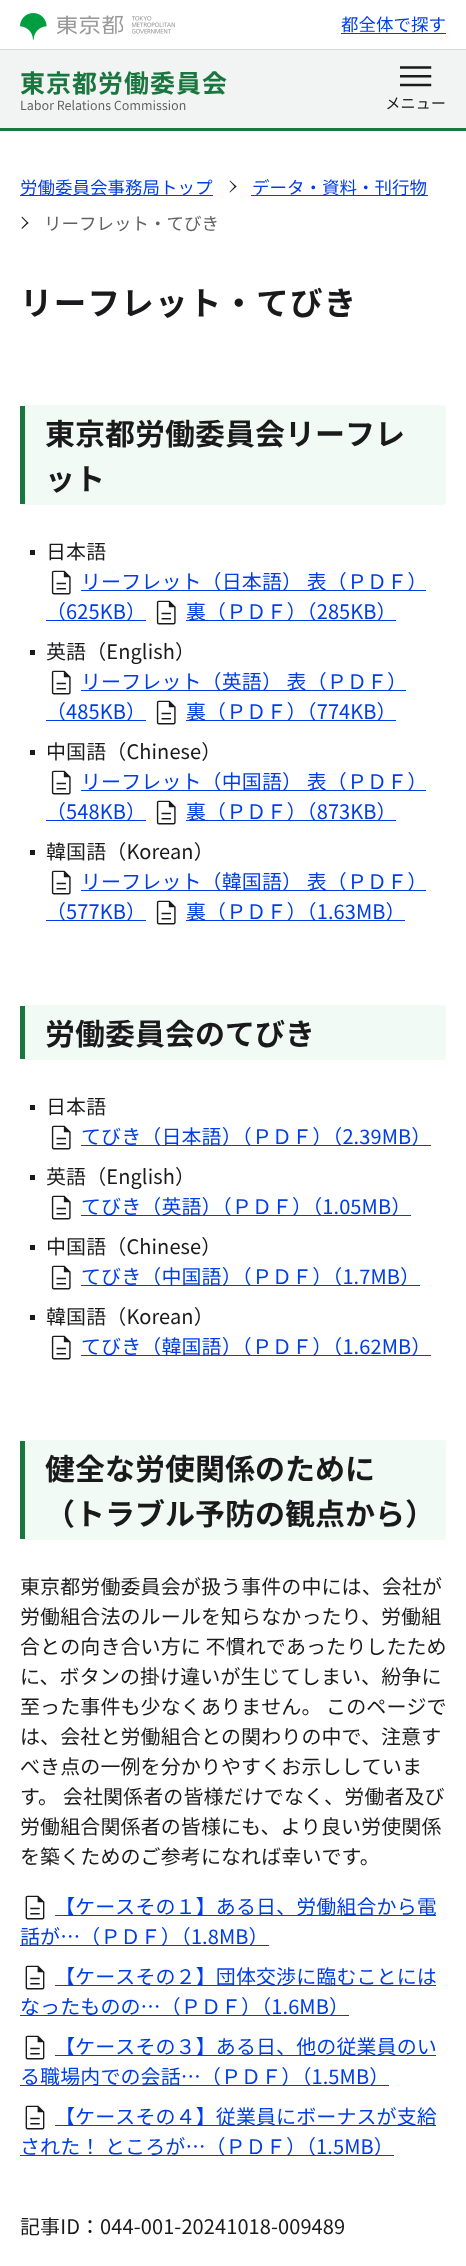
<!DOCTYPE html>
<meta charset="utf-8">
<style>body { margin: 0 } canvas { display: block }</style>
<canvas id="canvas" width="466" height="2266"></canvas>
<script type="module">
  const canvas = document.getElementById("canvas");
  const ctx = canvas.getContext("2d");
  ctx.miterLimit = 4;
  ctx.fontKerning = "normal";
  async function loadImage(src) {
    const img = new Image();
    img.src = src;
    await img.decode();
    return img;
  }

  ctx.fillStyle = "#ffffff";
  ctx.fillRect(0, 0, 466, 2266);
  ctx.fillStyle = "#d8d8db";
  ctx.fillRect(0, 49, 466, 1);
  ctx.drawImage(await loadImage("img1.png"), 20, 13, 155, 27);
  ctx.font = "17.5px Noto Sans JP";
  ctx.fillStyle = "#003ee5";
  ctx.fillText("都全体で探す", 341, 31);
  ctx.fillRect(341, 33, 105, 1);
  ctx.fillStyle = "#f1f4f2";
  ctx.fillRect(0, 50, 466, 78);
  ctx.drawImage(await loadImage("img2.png"), 20, 71, 207, 40);
  ctx.drawImage(await loadImage("img3.png"), 387, 66, 58, 44);
  ctx.fillStyle = "#1a753f";
  ctx.fillRect(0, 128, 466, 3);
  ctx.fillStyle = "#003ee5";
  ctx.fillRect(20, 195, 193, 1);
  ctx.fillText("労働委員会事務局トップ", 20, 194);
  ctx.fillStyle = "#1a1a1c";
  ctx.beginPath();
  ctx.moveTo(230, 180.5);
  ctx.lineTo(236.5, 186.5);
  ctx.lineTo(235.5, 187.5);
  ctx.lineTo(229.5, 181);
  ctx.closePath();
  ctx.fill();
  ctx.beginPath();
  ctx.moveTo(235.5, 185.5);
  ctx.lineTo(236.5, 186.5);
  ctx.lineTo(230, 192.5);
  ctx.lineTo(229.5, 192);
  ctx.closePath();
  ctx.fill();
  ctx.fillStyle = "#003ee5";
  ctx.fillRect(251, 195, 177, 1);
  ctx.fillText("データ・資料・刊行物", 252, 194);
  ctx.fillStyle = "#1a1a1c";
  ctx.beginPath();
  ctx.moveTo(22, 216.5);
  ctx.lineTo(28.5, 223);
  ctx.lineTo(27.5, 223.5);
  ctx.lineTo(21.5, 217.5);
  ctx.closePath();
  ctx.fill();
  ctx.beginPath();
  ctx.moveTo(27.5, 222);
  ctx.lineTo(28.5, 223);
  ctx.lineTo(22, 229);
  ctx.lineTo(21.5, 228);
  ctx.closePath();
  ctx.fill();
  ctx.fillStyle = "#626264";
  ctx.fillText("リーフレット・てびき", 44, 230);
  ctx.letterSpacing = "1.25px";
  ctx.font = "bold 32.5px Noto Sans JP";
  ctx.fillStyle = "#1a1a1c";
  ctx.fillText("リーフレット・てびき", 20, 315);
  ctx.fillStyle = "#f2faf5";
  ctx.beginPath();
  ctx.roundRect(20, 405, 426, 100, 2.5);
  ctx.fill();
  ctx.fillStyle = "#1a753f";
  ctx.fillRect(20, 406, 5, 98);
  ctx.letterSpacing = "0px";
  ctx.font = "bold 30px Noto Sans JP";
  ctx.fillStyle = "#1a1a1c";
  ctx.fillText("東京都労働委員会リーフレ", 45, 445);
  ctx.fillText("ット", 45, 490);
  ctx.fillRect(30, 550, 5, 5);
  ctx.letterSpacing = "0.1px";
  ctx.font = "20px Noto Sans JP";
  ctx.fillText("日本語", 46, 559);
  ctx.drawImage(await loadImage("img4.png"), 51, 570, 20, 25);
  ctx.fillStyle = "#003ee5";
  ctx.fillRect(81, 590, 345, 1);
  ctx.fillText("リーフレット（日本語） 表（ＰＤＦ）", 81, 589);
  ctx.fillRect(46, 620, 100, 1);
  ctx.fillText("（625KB）", 46, 619);
  ctx.drawImage(await loadImage("img4.png"), 156, 600, 20, 25);
  ctx.fillRect(186, 620, 210, 1);
  ctx.fillText("裏（ＰＤＦ）（285KB）", 186, 619);
  ctx.fillStyle = "#1a1a1c";
  ctx.fillRect(30, 650, 5, 5);
  ctx.fillText("英語（English）", 46, 659);
  ctx.drawImage(await loadImage("img4.png"), 51, 670, 20, 25);
  ctx.fillStyle = "#003ee5";
  ctx.fillRect(81, 690, 325, 1);
  ctx.fillText("リーフレット（英語） 表（ＰＤＦ）", 81, 689);
  ctx.fillRect(46, 720, 100, 1);
  ctx.fillText("（485KB）", 46, 719);
  ctx.drawImage(await loadImage("img4.png"), 156, 700, 20, 25);
  ctx.fillRect(186, 720, 210, 1);
  ctx.fillText("裏（ＰＤＦ）（774KB）", 186, 719);
  ctx.fillStyle = "#1a1a1c";
  ctx.fillRect(30, 750, 5, 5);
  ctx.fillText("中国語（Chinese）", 46, 759);
  ctx.drawImage(await loadImage("img4.png"), 51, 770, 20, 25);
  ctx.fillStyle = "#003ee5";
  ctx.fillRect(81, 790, 345, 1);
  ctx.fillText("リーフレット（中国語） 表（ＰＤＦ）", 81, 789);
  ctx.fillRect(46, 820, 100, 1);
  ctx.fillText("（548KB）", 46, 819);
  ctx.drawImage(await loadImage("img4.png"), 156, 800, 20, 25);
  ctx.fillRect(186, 820, 210, 1);
  ctx.fillText("裏（ＰＤＦ）（873KB）", 186, 819);
  ctx.fillStyle = "#1a1a1c";
  ctx.fillRect(30, 850, 5, 5);
  ctx.fillText("韓国語（Korean）", 46, 859);
  ctx.drawImage(await loadImage("img4.png"), 51, 870, 20, 25);
  ctx.fillStyle = "#003ee5";
  ctx.fillRect(81, 890, 345, 1);
  ctx.fillText("リーフレット（韓国語） 表（ＰＤＦ）", 81, 889);
  ctx.fillRect(46, 920, 100, 1);
  ctx.fillText("（577KB）", 46, 919);
  ctx.drawImage(await loadImage("img4.png"), 156, 900, 20, 25);
  ctx.fillRect(186, 920, 219, 1);
  ctx.fillText("裏（ＰＤＦ）（1.63MB）", 186, 919);
  ctx.fillStyle = "#f2faf5";
  ctx.beginPath();
  ctx.roundRect(20, 1005, 426, 55, 2.5);
  ctx.fill();
  ctx.fillStyle = "#1a753f";
  ctx.fillRect(20, 1006, 5, 53);
  ctx.letterSpacing = "0px";
  ctx.font = "bold 30px Noto Sans JP";
  ctx.fillStyle = "#1a1a1c";
  ctx.fillText("労働委員会のてびき", 45, 1045);
  ctx.fillRect(30, 1105, 5, 5);
  ctx.letterSpacing = "0.1px";
  ctx.font = "20px Noto Sans JP";
  ctx.fillText("日本語", 46, 1114);
  ctx.drawImage(await loadImage("img4.png"), 51, 1125, 20, 25);
  ctx.fillStyle = "#003ee5";
  ctx.fillRect(81, 1145, 350, 1);
  ctx.fillText("てびき（日本語）（ＰＤＦ）（2.39MB）", 81, 1144);
  ctx.fillStyle = "#1a1a1c";
  ctx.fillRect(30, 1175, 5, 5);
  ctx.fillText("英語（English）", 46, 1184);
  ctx.drawImage(await loadImage("img4.png"), 51, 1195, 20, 25);
  ctx.fillStyle = "#003ee5";
  ctx.fillRect(81, 1215, 330, 1);
  ctx.fillText("てびき（英語）（ＰＤＦ）（1.05MB）", 81, 1214);
  ctx.fillStyle = "#1a1a1c";
  ctx.fillRect(30, 1245, 5, 5);
  ctx.fillText("中国語（Chinese）", 46, 1254);
  ctx.drawImage(await loadImage("img5.png"), 51, 1265, 20, 25);
  ctx.fillStyle = "#003ee5";
  ctx.fillRect(81, 1285, 339, 1);
  ctx.fillText("てびき（中国語）（ＰＤＦ）（1.7MB）", 81, 1284);
  ctx.fillStyle = "#1a1a1c";
  ctx.fillRect(30, 1315, 5, 5);
  ctx.fillText("韓国語（Korean）", 46, 1324);
  ctx.drawImage(await loadImage("img4.png"), 51, 1335, 20, 25);
  ctx.fillStyle = "#003ee5";
  ctx.fillRect(81, 1355, 350, 1);
  ctx.fillText("てびき（韓国語）（ＰＤＦ）（1.62MB）", 81, 1354);
  ctx.fillStyle = "#f2faf5";
  ctx.beginPath();
  ctx.roundRect(20, 1440, 426, 100, 2.5);
  ctx.fill();
  ctx.fillStyle = "#1a753f";
  ctx.fillRect(20, 1441, 5, 98);
  ctx.letterSpacing = "0px";
  ctx.font = "bold 30px Noto Sans JP";
  ctx.fillStyle = "#1a1a1c";
  ctx.fillText("健全な労使関係のために", 45, 1480);
  ctx.fillText("（トラブル予防の観点から）", 45, 1525);
  ctx.letterSpacing = "0.1px";
  ctx.font = "20px Noto Sans JP";
  ctx.fillText("東京都労働委員会が扱う事件の中には、会社が", 20, 1594);
  ctx.fillText("労働組合法のルールを知らなかったり、労働組", 20, 1624);
  ctx.fillText("合との向き合い方に 不慣れであったりしたため", 20, 1654);
  ctx.fillText("に、ボタンの掛け違いが生じてしまい、紛争に", 20, 1684);
  ctx.fillText("至った事件も少なくありません。 このページで", 20, 1714);
  ctx.fillText("は、会社と労働組合との関わりの中で、注意す", 20, 1744);
  ctx.fillText("べき点の一例を分かりやすくお示ししていま", 20, 1774);
  ctx.fillText("す。 会社関係者の皆様だけでなく、労働者及び", 20, 1804);
  ctx.fillText("労働組合関係者の皆様にも、より良い労使関係", 20, 1834);
  ctx.fillText("を築くためのご参考になれば幸いです。", 20, 1864);
  ctx.drawImage(await loadImage("img6.png"), 25, 1895, 20, 25);
  ctx.fillStyle = "#003ee5";
  ctx.fillRect(55, 1915, 381, 1);
  ctx.fillText("【ケースその１】ある日、労働組合から電", 55, 1914);
  ctx.fillRect(20, 1945, 249, 1);
  ctx.fillText("話が…（ＰＤＦ）（1.8MB）", 20, 1944);
  ctx.drawImage(await loadImage("img6.png"), 25, 1965, 20, 25);
  ctx.fillRect(55, 1985, 381, 1);
  ctx.fillText("【ケースその２】団体交渉に臨むことには", 55, 1984);
  ctx.fillRect(20, 2015, 329, 1);
  ctx.fillText("なったものの…（ＰＤＦ）（1.6MB）", 20, 2014);
  ctx.drawImage(await loadImage("img6.png"), 25, 2035, 20, 25);
  ctx.fillRect(55, 2055, 381, 1);
  ctx.fillText("【ケースその３】ある日、他の従業員のい", 55, 2054);
  ctx.fillRect(20, 2085, 369, 1);
  ctx.fillText("る職場内での会話…（ＰＤＦ）（1.5MB）", 20, 2084);
  ctx.drawImage(await loadImage("img6.png"), 25, 2105, 20, 25);
  ctx.fillRect(55, 2125, 381, 1);
  ctx.fillText("【ケースその４】従業員にボーナスが支給", 55, 2124);
  ctx.fillRect(20, 2155, 374, 1);
  ctx.fillText("された！ ところが…（ＰＤＦ）（1.5MB）", 20, 2154);
  ctx.fillStyle = "#1a1a1c";
  ctx.fillText("記事ID：044-001-20241018-009489", 20, 2234);
</script>
